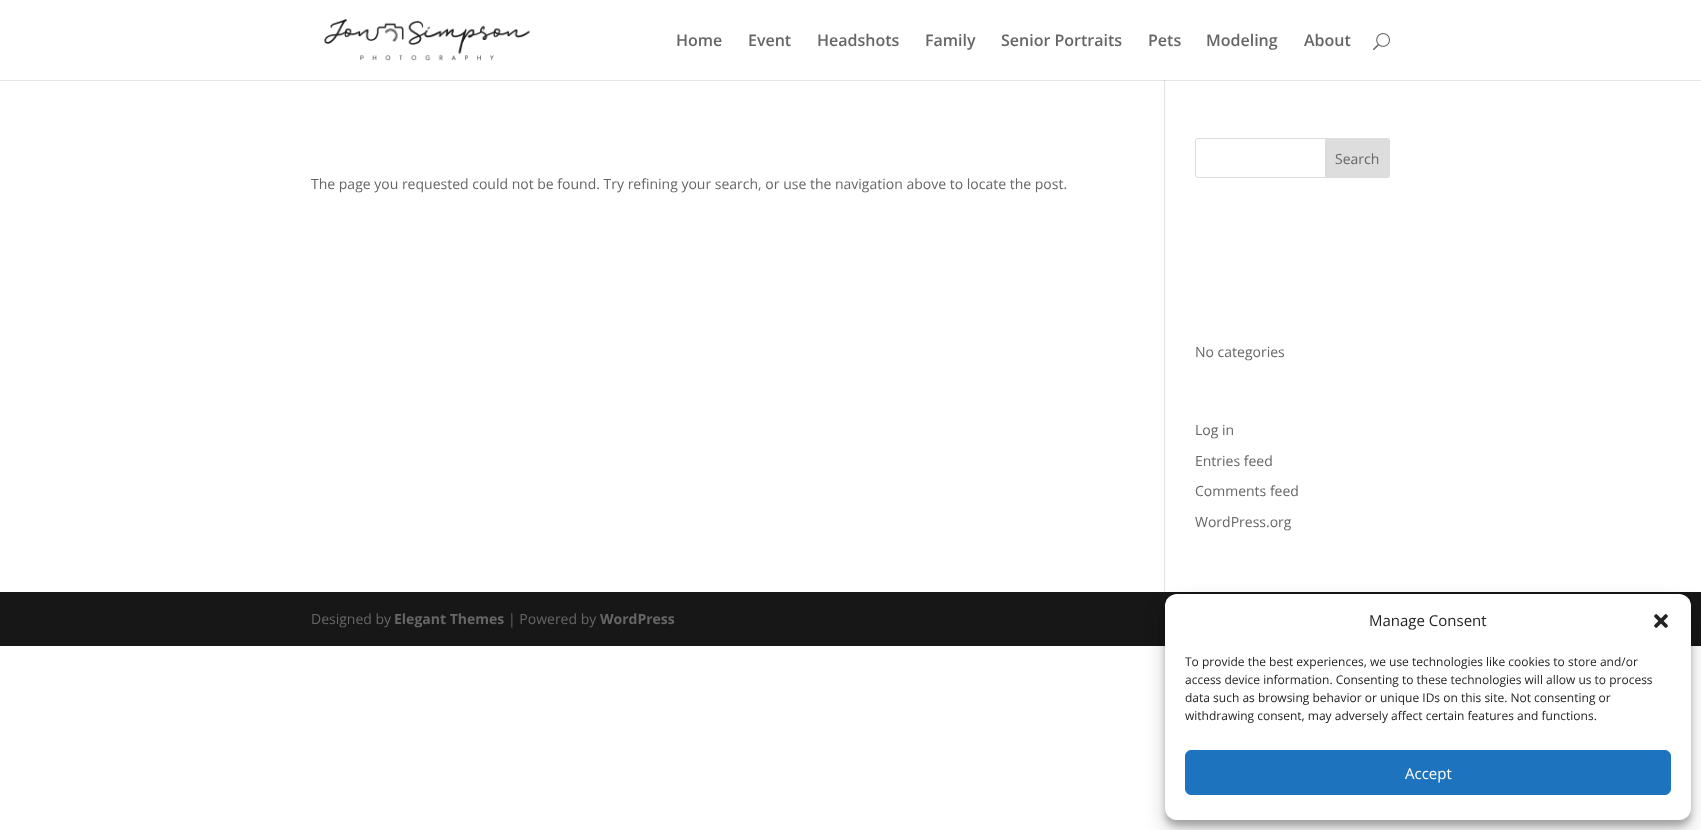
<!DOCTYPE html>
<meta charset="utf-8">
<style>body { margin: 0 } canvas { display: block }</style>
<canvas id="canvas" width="1701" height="830"></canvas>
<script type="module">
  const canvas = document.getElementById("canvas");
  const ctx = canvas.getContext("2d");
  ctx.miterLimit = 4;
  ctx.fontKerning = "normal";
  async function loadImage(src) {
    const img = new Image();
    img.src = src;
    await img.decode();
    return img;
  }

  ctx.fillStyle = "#ffffff";
  ctx.fillRect(0, 0, 1701, 830);
  ctx.fillStyle = "#e6e6e6";
  ctx.fillRect(0, 80, 1701, 1);
  ctx.drawImage(await loadImage("img1.png"), 324, 19, 206, 42);
  ctx.font = "600 16px Open Sans";
  ctx.fillStyle = "#666666";
  ctx.fillText("Home", 676, 46);
  ctx.fillText("Event", 748, 46);
  ctx.fillText("Headshots", 817, 46);
  ctx.fillText("Family", 925, 46);
  ctx.fillText("Senior Portraits", 1001, 46);
  ctx.fillText("Pets", 1148, 46);
  ctx.fillText("Modeling", 1206, 46);
  ctx.fillText("About", 1304, 46);
  ctx.drawImage(await loadImage("img2.png"), 1373, 33, 17, 18);
  ctx.fillStyle = "#e2e2e2";
  ctx.fillRect(1164, 80, 1, 512);
  ctx.fillStyle = "#cbcbcb";
  ctx.fillRect(1164, 80, 1, 1);
  ctx.font = "14px Open Sans";
  ctx.fillStyle = "#666666";
  ctx.fillText("The page you requested could not be found. Try refining your search, or use the navigation above to locate the post.", 311, 189);
  ctx.beginPath();
  ctx.roundRect(1195.5, 138.5, 194, 39, 2.5);
  ctx.strokeStyle = "#dddddd";
  ctx.stroke();
  ctx.fillStyle = "#dddddd";
  ctx.beginPath();
  ctx.roundRect(1325.5, 138.5, 64, 39, [0, 2.5, 2.5, 0]);
  ctx.fill();
  ctx.stroke();
  ctx.fillStyle = "#666666";
  ctx.fillText("Search", 1335, 164);
  ctx.fillText("No categories", 1195, 357);
  ctx.fillText("Log in", 1195, 435);
  ctx.fillText("Entries feed", 1195, 466);
  ctx.fillText("Comments feed", 1195, 496);
  ctx.fillText("WordPress.org", 1195, 527);
  ctx.fillStyle = "#171717";
  ctx.fillRect(0, 592, 1701, 54);
  ctx.fillStyle = "#666666";
  ctx.fillText("Designed by", 311, 624);
  ctx.font = "bold 14px Open Sans";
  ctx.fillText("Elegant Themes", 394, 624);
  ctx.font = "14px Open Sans";
  ctx.fillText("| Powered by", 508, 624);
  ctx.font = "bold 14px Open Sans";
  ctx.fillText("WordPress", 600, 624);
  ctx.fillStyle = "rgba(0, 0, 0, 0.23)";
  ctx.filter = "blur(3px)";
  ctx.beginPath();
  ctx.roundRect(1165, 600, 526, 226, 12);
  ctx.fill();
  ctx.filter = "none";
  ctx.fillStyle = "rgba(0, 0, 0, 0.19)";
  ctx.filter = "blur(10px)";
  ctx.beginPath();
  ctx.roundRect(1165, 604, 526, 226, 12);
  ctx.fill();
  ctx.filter = "none";
  ctx.fillStyle = "#ffffff";
  ctx.beginPath();
  ctx.roundRect(1165, 594, 526, 226, 12);
  ctx.fill();
  ctx.font = "15px Open Sans";
  ctx.fillStyle = "#222222";
  ctx.fillText("Manage Consent", 1369, 626);
  ctx.drawImage(await loadImage("img3.png"), 1654, 614, 14, 14);
  ctx.font = "12px Open Sans";
  ctx.fillText("To provide the best experiences, we use technologies like cookies to store and/or", 1185, 666);
  ctx.fillText("access device information. Consenting to these technologies will allow us to process", 1185, 684);
  ctx.fillText("data such as browsing behavior or unique IDs on this site. Not consenting or", 1185, 702);
  ctx.fillText("withdrawing consent, may adversely affect certain features and functions.", 1185, 720);
  ctx.fillStyle = "#1e73be";
  ctx.beginPath();
  ctx.roundRect(1185.5, 750.5, 485, 44, 5.5);
  ctx.fill();
  ctx.strokeStyle = "#1e73be";
  ctx.stroke();
  ctx.font = "15px Open Sans";
  ctx.fillStyle = "#ffffff";
  ctx.fillText("Accept", 1405, 779);
</script>
